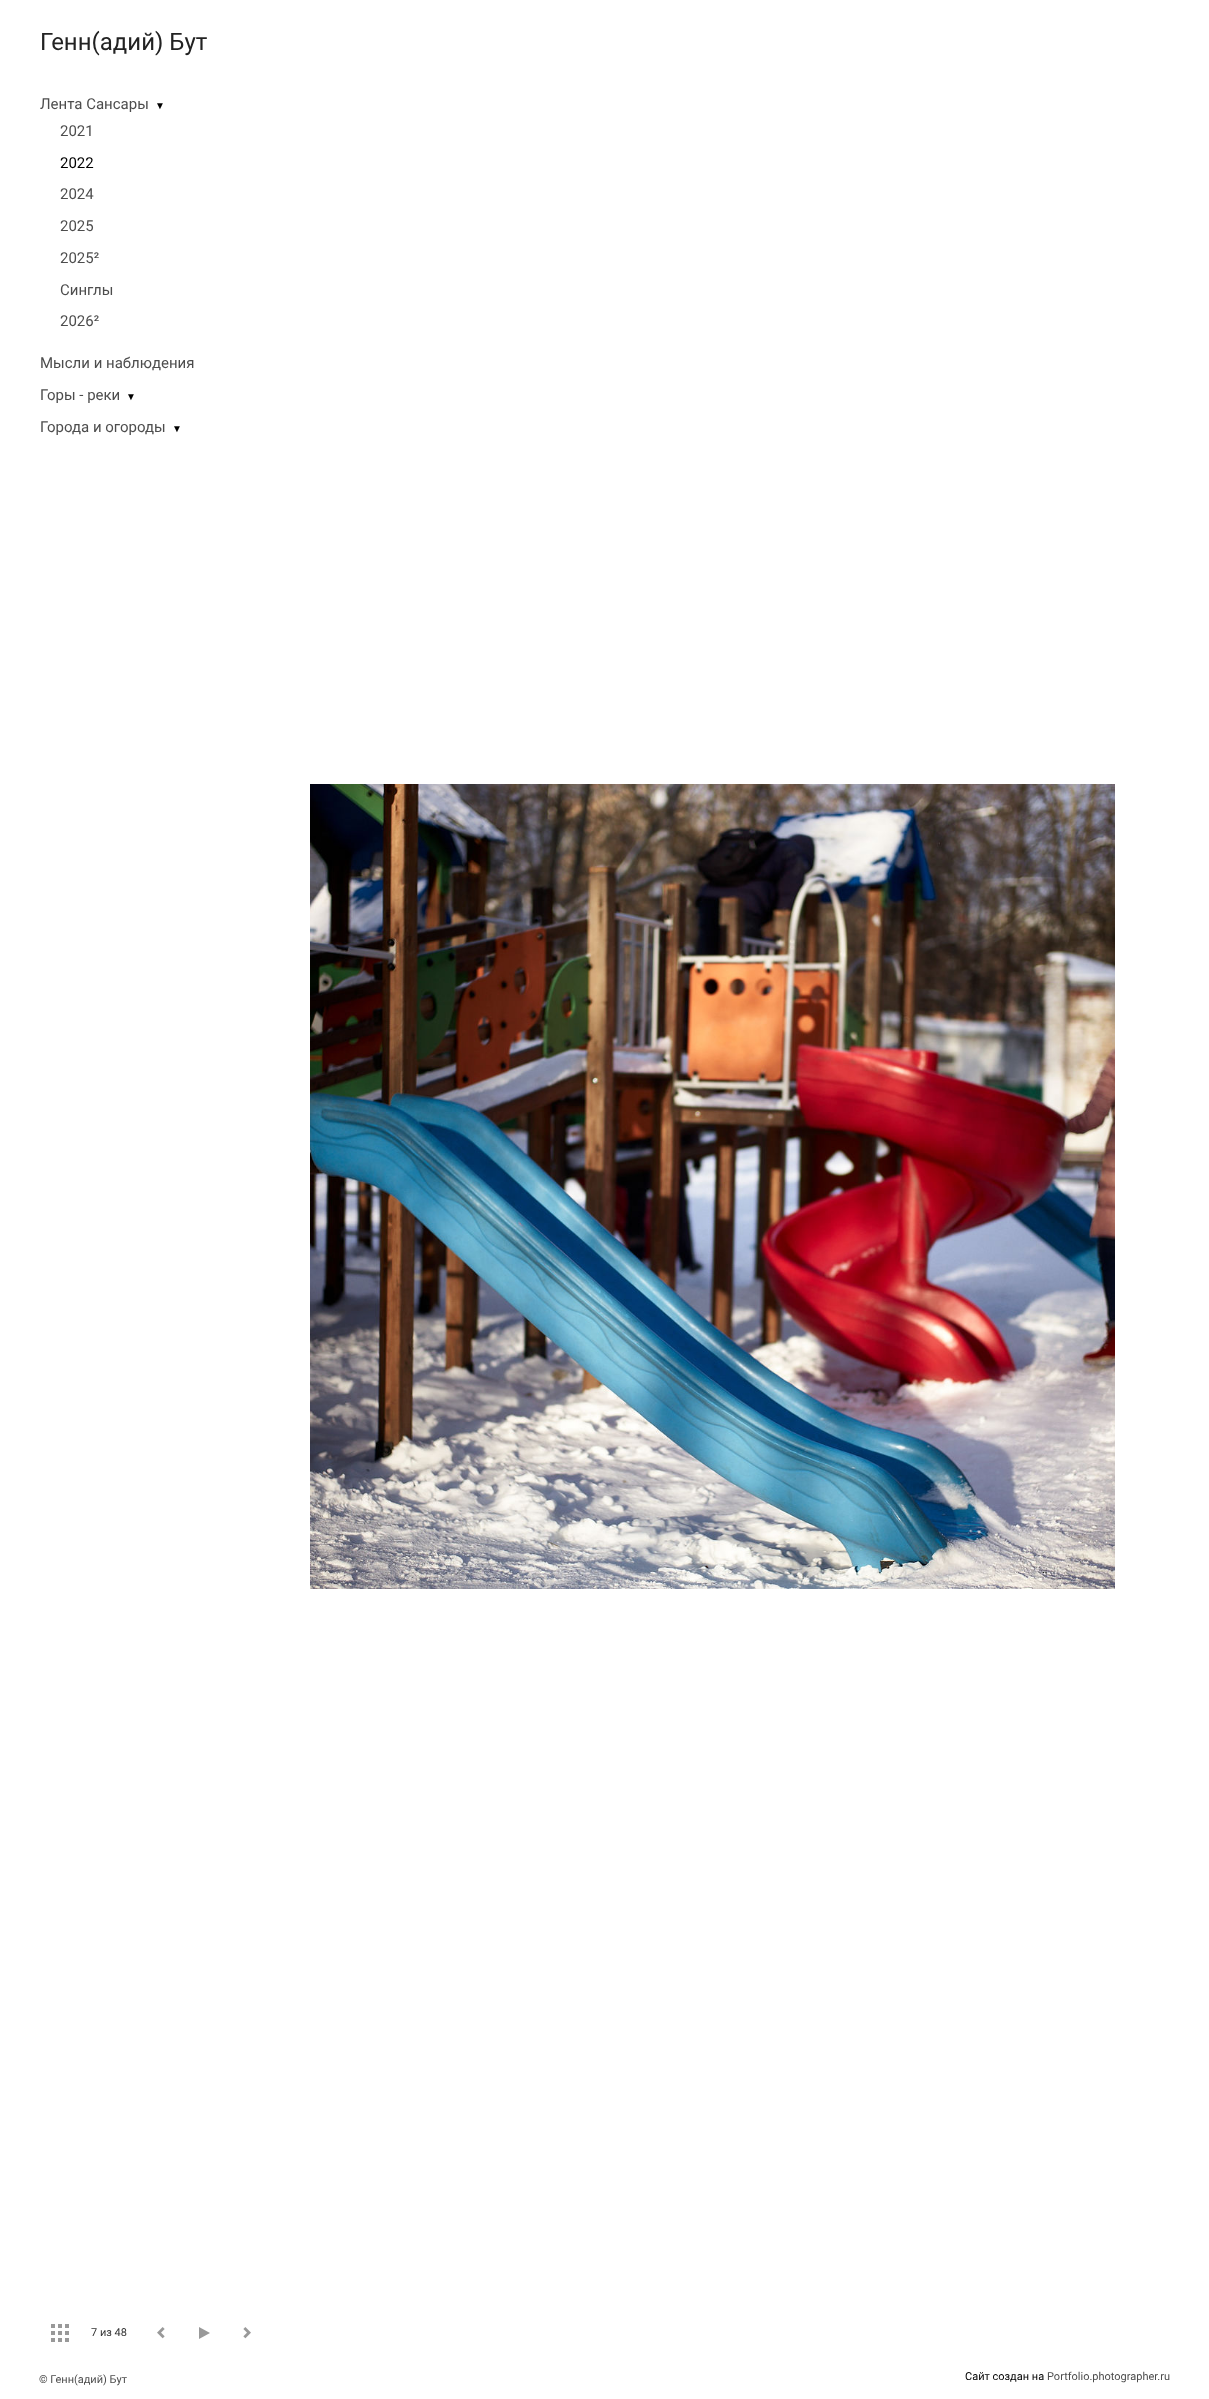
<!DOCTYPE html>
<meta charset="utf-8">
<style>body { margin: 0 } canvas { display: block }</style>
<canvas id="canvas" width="1209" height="2399"></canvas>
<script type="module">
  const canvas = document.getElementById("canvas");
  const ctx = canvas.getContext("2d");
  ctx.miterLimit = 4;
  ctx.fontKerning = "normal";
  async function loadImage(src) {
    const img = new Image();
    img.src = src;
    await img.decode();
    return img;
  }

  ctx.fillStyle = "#ffffff";
  ctx.fillRect(0, 0, 1209, 2399);
  ctx.font = "24px Roboto";
  ctx.fillStyle = "#222222";
  ctx.fillText("Генн(адий) Бут", 40, 50);
  ctx.font = "15px Roboto";
  ctx.fillStyle = "#4d4d4d";
  ctx.fillText("Лента Сансары", 40, 109);
  ctx.font = "10px Liberation Serif";
  ctx.fillStyle = "#000000";
  ctx.fillText("▼", 155, 109);
  ctx.font = "15px Roboto";
  ctx.fillStyle = "#4d4d4d";
  ctx.fillText("2021", 60, 136);
  ctx.fillStyle = "#000000";
  ctx.fillText("2022", 60, 168);
  ctx.fillStyle = "#4d4d4d";
  ctx.fillText("2024", 60, 199);
  ctx.fillText("2025", 60, 231);
  ctx.fillText("2025²", 60, 263);
  ctx.fillText("Синглы", 60, 295);
  ctx.fillText("2026²", 60, 326);
  ctx.fillText("Мысли и наблюдения", 40, 368);
  ctx.fillText("Горы - реки", 40, 400);
  ctx.font = "10px Liberation Serif";
  ctx.fillStyle = "#000000";
  ctx.fillText("▼", 126, 400);
  ctx.font = "15px Roboto";
  ctx.fillStyle = "#4d4d4d";
  ctx.fillText("Города и огороды", 40, 432);
  ctx.font = "10px Liberation Serif";
  ctx.fillStyle = "#000000";
  ctx.fillText("▼", 172, 432);
  ctx.drawImage(await loadImage("img1.png"), 51, 2324, 18, 18);
  ctx.font = "11px Roboto";
  ctx.fillStyle = "#333333";
  ctx.fillText("7 из 48", 91, 2336);
  ctx.drawImage(await loadImage("img2.png"), 157, 2327, 8, 12);
  ctx.fillStyle = "#999999";
  ctx.beginPath();
  ctx.moveTo(210, 2333);
  ctx.lineTo(199, 2339);
  ctx.lineTo(199, 2327);
  ctx.closePath();
  ctx.fill();
  ctx.drawImage(await loadImage("img3.png"), 243, 2327, 8, 12);
  ctx.drawImage(await loadImage("img4.png"), 310, 784, 805, 805);
  ctx.fillStyle = "#4d4d4d";
  ctx.fillText("© Генн(адий) Бут", 39, 2383);
  ctx.fillStyle = "#000000";
  ctx.fillText("Сайт создан на", 965, 2380);
  ctx.fillStyle = "#4d4d4d";
  ctx.fillText("Portfolio.photographer.ru", 1047, 2380);
</script>
